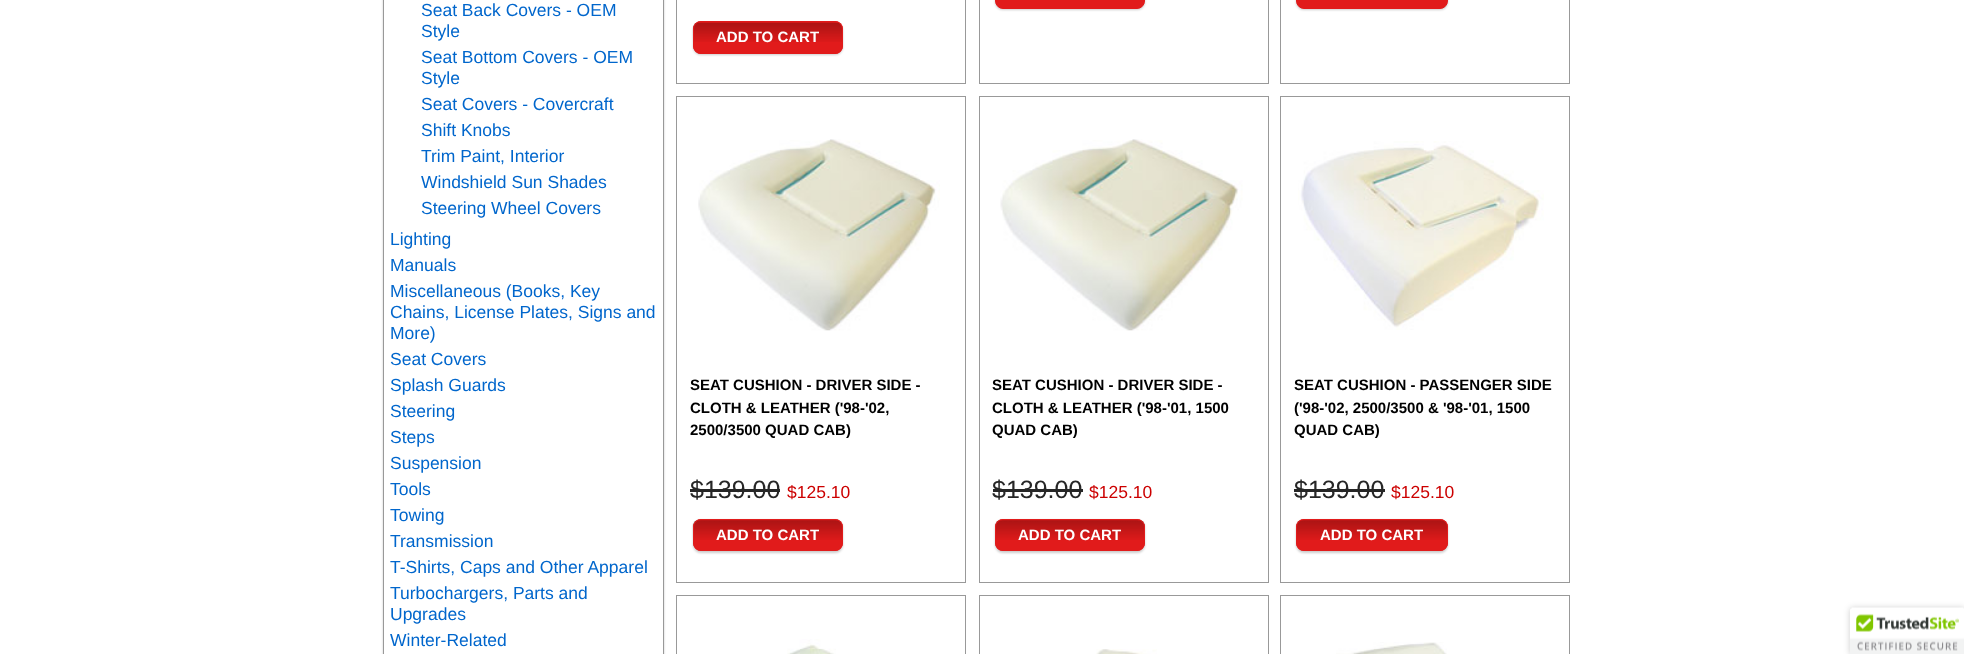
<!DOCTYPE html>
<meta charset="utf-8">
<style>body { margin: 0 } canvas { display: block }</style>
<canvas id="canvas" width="1964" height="654"></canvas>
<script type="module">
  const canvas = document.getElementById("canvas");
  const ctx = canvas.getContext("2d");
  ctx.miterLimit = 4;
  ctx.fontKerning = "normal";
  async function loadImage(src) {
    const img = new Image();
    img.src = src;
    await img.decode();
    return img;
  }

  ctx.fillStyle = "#ffffff";
  ctx.fillRect(0, 0, 1964, 654);
  ctx.save();
  ctx.beginPath();
  ctx.moveTo(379, 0);
  ctx.lineTo(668, 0);
  ctx.lineTo(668, 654);
  ctx.lineTo(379, 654);
  ctx.closePath();
  ctx.moveTo(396, -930);
  ctx.lineTo(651, -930);
  ctx.bezierCurveTo(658, -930, 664, -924, 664, -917);
  ctx.lineTo(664, 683);
  ctx.bezierCurveTo(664, 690, 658, 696, 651, 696);
  ctx.lineTo(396, 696);
  ctx.bezierCurveTo(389, 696, 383, 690, 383, 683);
  ctx.lineTo(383, -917);
  ctx.bezierCurveTo(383, -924, 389, -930, 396, -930);
  ctx.closePath();
  ctx.clip("evenodd");
  ctx.fillStyle = "rgba(0, 0, 0, 0.2)";
  ctx.filter = "blur(1px)";
  ctx.beginPath();
  ctx.roundRect(383, -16, 281, 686, 13);
  ctx.fill();
  ctx.filter = "none";
  ctx.restore();
  ctx.strokeStyle = "#999999";
  ctx.strokeRect(383.5, -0.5, 280, 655);
  ctx.font = "17.5px Liberation Sans";
  ctx.fillStyle = "#0066cc";
  ctx.fillText("Seat Back Covers - OEM", 421, 16);
  ctx.fillText("Style", 421, 37);
  ctx.fillText("Seat Bottom Covers - OEM", 421, 63);
  ctx.fillText("Style", 421, 84);
  ctx.fillText("Seat Covers - Covercraft", 421, 110);
  ctx.fillText("Shift Knobs", 421, 136);
  ctx.fillText("Trim Paint, Interior", 421, 162);
  ctx.fillText("Windshield Sun Shades", 421, 188);
  ctx.fillText("Steering Wheel Covers", 421, 214);
  ctx.fillText("Lighting", 390, 245);
  ctx.fillText("Manuals", 390, 271);
  ctx.fillText("Miscellaneous (Books, Key", 390, 297);
  ctx.fillText("Chains, License Plates, Signs and", 390, 318);
  ctx.fillText("More)", 390, 339);
  ctx.fillText("Seat Covers", 390, 365);
  ctx.fillText("Splash Guards", 390, 391);
  ctx.fillText("Steering", 390, 417);
  ctx.fillText("Steps", 390, 443);
  ctx.fillText("Suspension", 390, 469);
  ctx.fillText("Tools", 390, 495);
  ctx.fillText("Towing", 390, 521);
  ctx.fillText("Transmission", 390, 547);
  ctx.fillText("T-Shirts, Caps and Other Apparel", 390, 573);
  ctx.fillText("Turbochargers, Parts and", 390, 599);
  ctx.fillText("Upgrades", 390, 620);
  ctx.fillText("Winter-Related", 390, 646);
  ctx.strokeRect(676.5, -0.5, 289, 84);
  ctx.fillStyle = "rgba(0, 0, 0, 0.2)";
  ctx.filter = "blur(1px)";
  ctx.beginPath();
  ctx.roundRect(693, 23, 150, 32, 8);
  ctx.fill();
  ctx.filter = "none";
  ctx.fillStyle = "#e11b1b";
  ctx.beginPath();
  ctx.roundRect(693, 21, 150, 33, 8);
  ctx.fill();
  ctx.drawImage(await loadImage("img1.png"), 692, 22, 151, 20);
  ctx.beginPath();
  ctx.roundRect(693.5, 21.5, 149, 32, 7.5);
  ctx.strokeStyle = "#e11b1b";
  ctx.stroke();
  ctx.font = "bold 15px Liberation Sans";
  ctx.fillStyle = "#ffffff";
  ctx.fillText("ADD TO CART", 716, 42);
  ctx.strokeStyle = "#999999";
  ctx.strokeRect(979.5, -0.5, 289, 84);
  ctx.fillStyle = "rgba(0, 0, 0, 0.2)";
  ctx.filter = "blur(1px)";
  ctx.beginPath();
  ctx.roundRect(995, -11, 150, 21, 8);
  ctx.fill();
  ctx.filter = "none";
  ctx.fillStyle = "#e11b1b";
  ctx.beginPath();
  ctx.roundRect(995.5, -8.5, 149, 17, 7.5);
  ctx.fill();
  ctx.strokeStyle = "#e11b1b";
  ctx.stroke();
  ctx.strokeStyle = "#999999";
  ctx.strokeRect(1280.5, -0.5, 289, 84);
  ctx.fillStyle = "rgba(0, 0, 0, 0.2)";
  ctx.filter = "blur(1px)";
  ctx.beginPath();
  ctx.roundRect(1296, -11, 152, 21, 8);
  ctx.fill();
  ctx.filter = "none";
  ctx.fillStyle = "#e11b1b";
  ctx.beginPath();
  ctx.roundRect(1296.5, -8.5, 151, 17, 7.5);
  ctx.fill();
  ctx.strokeStyle = "#e11b1b";
  ctx.stroke();
  ctx.strokeStyle = "#999999";
  ctx.strokeRect(676.5, 96.5, 289, 486);
  ctx.drawImage(await loadImage("img2.png"), 698, 139, 242, 192);
  ctx.fillStyle = "#000000";
  ctx.fillText("SEAT CUSHION - DRIVER SIDE -", 690, 390);
  ctx.fillText("CLOTH & LEATHER ('98-'02,", 690, 413);
  ctx.fillText("2500/3500 QUAD CAB)", 690, 435);
  ctx.font = "25px Liberation Sans";
  ctx.fillStyle = "#262626";
  ctx.fillText("$139.00", 690, 498);
  ctx.fillRect(690, 489, 90, 3);
  ctx.font = "17.5px Liberation Sans";
  ctx.fillStyle = "#cc0000";
  ctx.fillText("$125.10", 787, 498);
  ctx.fillStyle = "rgba(0, 0, 0, 0.2)";
  ctx.filter = "blur(1px)";
  ctx.beginPath();
  ctx.roundRect(693, 520, 150, 33, 8);
  ctx.fill();
  ctx.filter = "none";
  ctx.fillStyle = "#e11b1b";
  ctx.beginPath();
  ctx.roundRect(693, 519, 150, 32, 8);
  ctx.fill();
  ctx.drawImage(await loadImage("img3.png"), 692, 520, 151, 20);
  ctx.beginPath();
  ctx.roundRect(693.5, 519.5, 149, 31, 7.5);
  ctx.strokeStyle = "#e11b1b";
  ctx.stroke();
  ctx.font = "bold 15px Liberation Sans";
  ctx.fillStyle = "#ffffff";
  ctx.fillText("ADD TO CART", 716, 540);
  ctx.strokeStyle = "#999999";
  ctx.strokeRect(979.5, 96.5, 289, 486);
  ctx.drawImage(await loadImage("img4.png"), 1000, 139, 243, 192);
  ctx.fillStyle = "#000000";
  ctx.fillText("SEAT CUSHION - DRIVER SIDE -", 992, 390);
  ctx.fillText("CLOTH & LEATHER ('98-'01, 1500", 992, 413);
  ctx.fillText("QUAD CAB)", 992, 435);
  ctx.font = "25px Liberation Sans";
  ctx.fillStyle = "#262626";
  ctx.fillText("$139.00", 992, 498);
  ctx.fillRect(993, 489, 90, 3);
  ctx.font = "17.5px Liberation Sans";
  ctx.fillStyle = "#cc0000";
  ctx.fillText("$125.10", 1089, 498);
  ctx.fillStyle = "rgba(0, 0, 0, 0.2)";
  ctx.filter = "blur(1px)";
  ctx.beginPath();
  ctx.roundRect(995, 520, 150, 33, 8);
  ctx.fill();
  ctx.filter = "none";
  ctx.fillStyle = "#e11b1b";
  ctx.beginPath();
  ctx.roundRect(995, 519, 150, 32, 8);
  ctx.fill();
  ctx.drawImage(await loadImage("img5.png"), 995, 520, 150, 20);
  ctx.beginPath();
  ctx.roundRect(995.5, 519.5, 149, 31, 7.5);
  ctx.strokeStyle = "#e11b1b";
  ctx.stroke();
  ctx.font = "bold 15px Liberation Sans";
  ctx.fillStyle = "#ffffff";
  ctx.fillText("ADD TO CART", 1018, 540);
  ctx.strokeStyle = "#999999";
  ctx.strokeRect(1280.5, 96.5, 289, 486);
  ctx.drawImage(await loadImage("img6.png"), 1298, 141, 246, 189);
  ctx.fillStyle = "#000000";
  ctx.fillText("SEAT CUSHION - PASSENGER SIDE", 1294, 390);
  ctx.fillText("('98-'02, 2500/3500 & '98-'01, 1500", 1294, 413);
  ctx.fillText("QUAD CAB)", 1294, 435);
  ctx.font = "25px Liberation Sans";
  ctx.fillStyle = "#262626";
  ctx.fillText("$139.00", 1294, 498);
  ctx.fillRect(1294, 489, 91, 3);
  ctx.font = "17.5px Liberation Sans";
  ctx.fillStyle = "#cc0000";
  ctx.fillText("$125.10", 1391, 498);
  ctx.fillStyle = "rgba(0, 0, 0, 0.2)";
  ctx.filter = "blur(1px)";
  ctx.beginPath();
  ctx.roundRect(1296, 520, 152, 33, 8);
  ctx.fill();
  ctx.filter = "none";
  ctx.fillStyle = "#e11b1b";
  ctx.beginPath();
  ctx.roundRect(1296, 519, 152, 32, 8);
  ctx.fill();
  ctx.drawImage(await loadImage("img7.png"), 1296, 520, 152, 20);
  ctx.beginPath();
  ctx.roundRect(1296.5, 519.5, 151, 31, 7.5);
  ctx.strokeStyle = "#e11b1b";
  ctx.stroke();
  ctx.font = "bold 15px Liberation Sans";
  ctx.fillStyle = "#ffffff";
  ctx.fillText("ADD TO CART", 1320, 540);
  ctx.strokeStyle = "#999999";
  ctx.strokeRect(676.5, 595.5, 289, 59);
  ctx.drawImage(await loadImage("img8.png"), 787, 639, 49, 15);
  ctx.strokeRect(979.5, 595.5, 289, 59);
  ctx.drawImage(await loadImage("img9.png"), 1096, 649, 61, 5);
  ctx.strokeRect(1280.5, 595.5, 289, 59);
  ctx.drawImage(await loadImage("img10.png"), 1336, 642, 111, 12);
  ctx.fillStyle = "rgba(0, 0, 0, 0.2)";
  ctx.filter = "blur(3px)";
  ctx.beginPath();
  ctx.roundRect(1850, 608, 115, 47, 2.5);
  ctx.fill();
  ctx.filter = "none";
  ctx.drawImage(await loadImage("img11.png"), 1850, 607, 114, 47);
</script>
